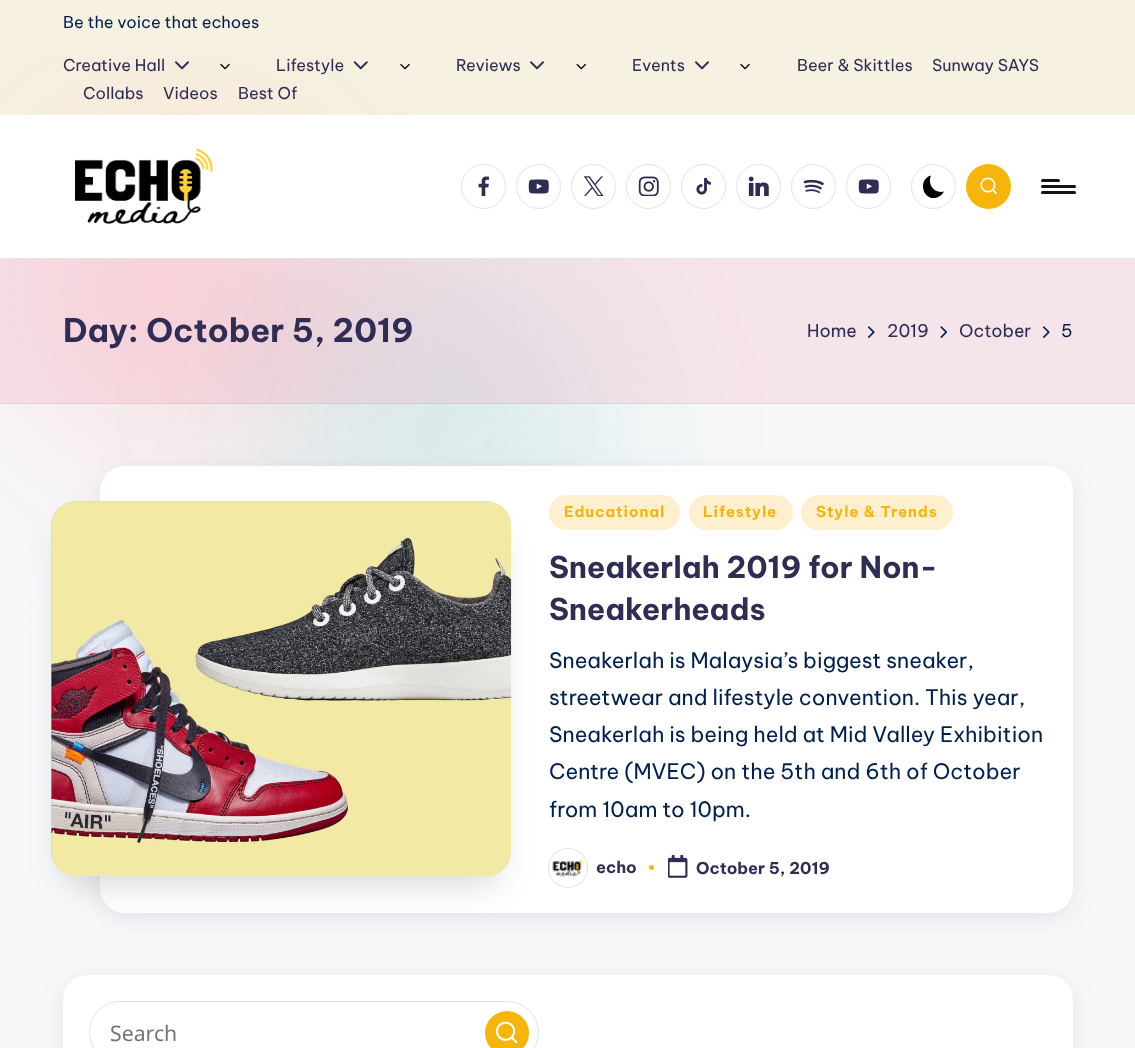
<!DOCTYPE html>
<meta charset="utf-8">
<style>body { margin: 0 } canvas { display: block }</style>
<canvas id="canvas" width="1135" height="1048"></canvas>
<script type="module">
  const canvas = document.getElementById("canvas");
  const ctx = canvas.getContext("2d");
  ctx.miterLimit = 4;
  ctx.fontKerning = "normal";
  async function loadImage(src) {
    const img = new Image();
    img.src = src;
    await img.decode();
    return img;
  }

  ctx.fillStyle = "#f7f8f9";
  ctx.fillRect(0, 0, 1135, 1048);
  ctx.save();
  ctx.beginPath();
  ctx.rect(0, 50, 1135, 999);
  ctx.clip();
  ctx.fillStyle = "#f7e3e5";
  ctx.filter = "blur(80px)";
  ctx.beginPath();
  ctx.roundRect(0, 113, 360, 360, 180);
  ctx.fill();
  ctx.filter = "none";
  ctx.restore();
  ctx.fillStyle = "rgba(4, 134, 139, 0.1)";
  ctx.filter = "blur(80px)";
  ctx.beginPath();
  ctx.roundRect(260, 250, 360, 360, 180);
  ctx.fill();
  ctx.filter = "none";
  ctx.fillStyle = "rgba(247, 229, 183, 0.35)";
  ctx.fillRect(0, 0, 1135, 115);
  ctx.font = "16.25px Be Vietnam Pro";
  ctx.fillStyle = "#002050";
  ctx.fillText("Be the voice that echoes", 63, 28);
  ctx.fillStyle = "#302d55";
  ctx.fillText("Creative Hall", 63, 71);
  ctx.drawImage(await loadImage("img1.png"), 175, 61, 14, 9);
  ctx.drawImage(await loadImage("img2.png"), 220, 63, 10, 7);
  ctx.fillText("Lifestyle", 276, 71);
  ctx.drawImage(await loadImage("img3.png"), 353, 61, 15, 9);
  ctx.drawImage(await loadImage("img4.png"), 400, 63, 10, 7);
  ctx.fillText("Reviews", 456, 71);
  ctx.drawImage(await loadImage("img5.png"), 530, 61, 14, 9);
  ctx.drawImage(await loadImage("img6.png"), 576, 63, 10, 7);
  ctx.fillText("Events", 632, 71);
  ctx.drawImage(await loadImage("img7.png"), 695, 61, 14, 9);
  ctx.drawImage(await loadImage("img8.png"), 740, 63, 10, 7);
  ctx.fillText("Beer & Skittles", 797, 71);
  ctx.fillText("Sunway SAYS", 932, 71);
  ctx.fillText("Collabs", 83, 99);
  ctx.fillText("Videos", 163, 99);
  ctx.fillText("Best Of", 238, 99);
  ctx.fillStyle = "#ffffff";
  ctx.fillRect(0, 115, 1135, 143);
  ctx.fillStyle = "#e3e3e3";
  ctx.fillRect(0, 258, 1135, 1);
  ctx.drawImage(await loadImage("img9.png"), 75, 148, 138, 76);
  ctx.beginPath();
  ctx.arc(483.5, 186.5, 22, 0, Math.PI * 2);
  ctx.strokeStyle = "#e3e3e3";
  ctx.stroke();
  ctx.drawImage(await loadImage("img10.png"), 478, 176, 11, 20);
  ctx.beginPath();
  ctx.arc(538.5, 186.5, 22, 0, Math.PI * 2);
  ctx.stroke();
  ctx.drawImage(await loadImage("img11.png"), 528, 179, 21, 15);
  ctx.beginPath();
  ctx.arc(593.5, 186.5, 22, 0, Math.PI * 2);
  ctx.stroke();
  ctx.drawImage(await loadImage("img12.png"), 583, 176, 21, 20);
  ctx.beginPath();
  ctx.arc(648.5, 186.5, 22, 0, Math.PI * 2);
  ctx.stroke();
  ctx.drawImage(await loadImage("img13.png"), 638, 176, 21, 20);
  ctx.beginPath();
  ctx.arc(703.5, 186.5, 22, 0, Math.PI * 2);
  ctx.stroke();
  ctx.drawImage(await loadImage("img14.png"), 696, 177, 15, 18);
  ctx.beginPath();
  ctx.arc(758.5, 186.5, 22, 0, Math.PI * 2);
  ctx.stroke();
  ctx.drawImage(await loadImage("img15.png"), 748, 176, 21, 20);
  ctx.beginPath();
  ctx.arc(813.5, 186.5, 22, 0, Math.PI * 2);
  ctx.stroke();
  ctx.drawImage(await loadImage("img16.png"), 803, 179, 21, 15);
  ctx.beginPath();
  ctx.arc(868.5, 186.5, 22, 0, Math.PI * 2);
  ctx.stroke();
  ctx.drawImage(await loadImage("img11.png"), 858, 179, 21, 15);
  ctx.beginPath();
  ctx.arc(933.5, 186.5, 22, 0, Math.PI * 2);
  ctx.stroke();
  ctx.fillStyle = "#000000";
  ctx.beginPath();
  ctx.moveTo(944, 191.5);
  ctx.bezierCurveTo(934.5, 194, 927, 184.5, 931, 175.5);
  ctx.bezierCurveTo(917, 179.5, 923, 202, 937, 197.5);
  ctx.bezierCurveTo(940, 196.5, 942.5, 194.5, 944, 191.5);
  ctx.closePath();
  ctx.fill();
  ctx.fillStyle = "#f7b40b";
  ctx.beginPath();
  ctx.arc(988.5, 186.5, 22.5, 0, Math.PI * 2);
  ctx.fill();
  ctx.drawImage(await loadImage("img17.png"), 980, 177, 18, 18);
  ctx.fillStyle = "#131315";
  ctx.beginPath();
  ctx.roundRect(1041, 185, 35, 3, 1.5);
  ctx.fill();
  ctx.beginPath();
  ctx.roundRect(1041, 179, 19, 3, 1.5);
  ctx.fill();
  ctx.beginPath();
  ctx.roundRect(1041, 191, 35, 3, 1.5);
  ctx.fill();
  ctx.fillStyle = "rgba(244, 54, 118, 0.1)";
  ctx.fillRect(0, 259, 1135, 145);
  ctx.fillStyle = "rgba(0, 0, 0, 0.06)";
  ctx.fillRect(0, 403, 1135, 1);
  ctx.font = "bold 32.5px Be Vietnam Pro";
  ctx.fillStyle = "#302d55";
  ctx.fillText("Day: October 5, 2019", 63, 342);
  ctx.font = "17.5px Be Vietnam Pro";
  ctx.fillText("Home", 807, 337);
  ctx.drawImage(await loadImage("img18.png"), 868, 326, 7, 12);
  ctx.fillText("2019", 887, 337);
  ctx.drawImage(await loadImage("img19.png"), 940, 326, 7, 12);
  ctx.fillText("October", 959, 337);
  ctx.drawImage(await loadImage("img18.png"), 1043, 326, 7, 12);
  ctx.fillStyle = "#002050";
  ctx.fillText("5", 1061, 337);
  ctx.fillStyle = "rgba(69, 67, 96, 0.1)";
  ctx.filter = "blur(12.5px)";
  ctx.beginPath();
  ctx.roundRect(100, 473, 973, 446, 25);
  ctx.fill();
  ctx.filter = "none";
  ctx.fillStyle = "#ffffff";
  ctx.beginPath();
  ctx.roundRect(100, 466, 973, 447, 25);
  ctx.fill();
  ctx.fillStyle = "#fef0cf";
  ctx.beginPath();
  ctx.roundRect(549, 495, 131, 35, 17.5);
  ctx.fill();
  ctx.drawImage(await loadImage("img21.png"), 552, 858, 32, 19);
  ctx.beginPath();
  ctx.arc(568, 868, 19.5, 0, Math.PI * 2);
  ctx.stroke();
  ctx.fillStyle = "rgba(0, 0, 0, 0.18)";
  ctx.filter = "blur(17.5px)";
  ctx.beginPath();
  ctx.roundRect(66, 536, 430, 345, 10);
  ctx.fill();
  ctx.filter = "none";
  ctx.fillStyle = "#d1d1d1";
  ctx.beginPath();
  ctx.roundRect(51, 501, 460, 375, 25);
  ctx.fill();
  ctx.drawImage(await loadImage("img20.png"), 51, 501, 461, 376);
  ctx.letterSpacing = "0.9px";
  ctx.font = "bold 15px Be Vietnam Pro";
  ctx.fillStyle = "#f7b40b";
  ctx.fillText("Educational", 564, 517);
  ctx.fillStyle = "#fef0cf";
  ctx.beginPath();
  ctx.roundRect(689, 495, 104, 35, 17.5);
  ctx.fill();
  ctx.fillStyle = "#f7b40b";
  ctx.fillText("Lifestyle", 703, 517);
  ctx.fillStyle = "#fef0cf";
  ctx.beginPath();
  ctx.roundRect(801, 495, 152, 35, 17.5);
  ctx.fill();
  ctx.fillStyle = "#f7b40b";
  ctx.fillText("Style & Trends", 816, 517);
  ctx.letterSpacing = "0px";
  ctx.font = "bold 30px Be Vietnam Pro";
  ctx.fillStyle = "#302d55";
  ctx.fillText("Sneakerlah 2019 for Non-", 549, 578);
  ctx.fillText("Sneakerheads", 549, 620);
  ctx.font = "21.25px Be Vietnam Pro";
  ctx.fillStyle = "#002050";
  ctx.fillText("Sneakerlah is Malaysia’s biggest sneaker,", 549, 668);
  ctx.fillText("streetwear and lifestyle convention. This year,", 549, 705);
  ctx.fillText("Sneakerlah is being held at Mid Valley Exhibition", 549, 742);
  ctx.fillText("Centre (MVEC) on the 5th and 6th of October", 549, 779);
  ctx.fillText("from 10am to 10pm.", 549, 817);
  ctx.font = "bold 16.25px Be Vietnam Pro";
  ctx.fillStyle = "#302d55";
  ctx.fillText("echo", 596, 873);
  ctx.fillStyle = "#f7b40b";
  ctx.beginPath();
  ctx.arc(651.5, 867.5, 2.5, 0, Math.PI * 2);
  ctx.fill();
  ctx.drawImage(await loadImage("img22.png"), 668, 855, 20, 23);
  ctx.fillStyle = "#302d55";
  ctx.fillText("October 5, 2019", 696, 874);
  ctx.fillStyle = "rgba(69, 67, 96, 0.1)";
  ctx.filter = "blur(12.5px)";
  ctx.beginPath();
  ctx.roundRect(63, 981, 1010, 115, 25);
  ctx.fill();
  ctx.filter = "none";
  ctx.fillStyle = "#ffffff";
  ctx.beginPath();
  ctx.roundRect(63, 975, 1010, 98, 25);
  ctx.fill();
  ctx.beginPath();
  ctx.roundRect(89.5, 1001.5, 449, 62, 31);
  ctx.strokeStyle = "#e2e2e2";
  ctx.stroke();
  ctx.font = "21.25px Noto Sans";
  ctx.fillStyle = "#757575";
  ctx.fillText("Search", 110, 1041);
  ctx.fillStyle = "#f7b40b";
  ctx.beginPath();
  ctx.arc(507, 1033, 22, 0, Math.PI * 2);
  ctx.fill();
  ctx.drawImage(await loadImage("img23.png"), 495, 1021, 23, 23);
</script>
